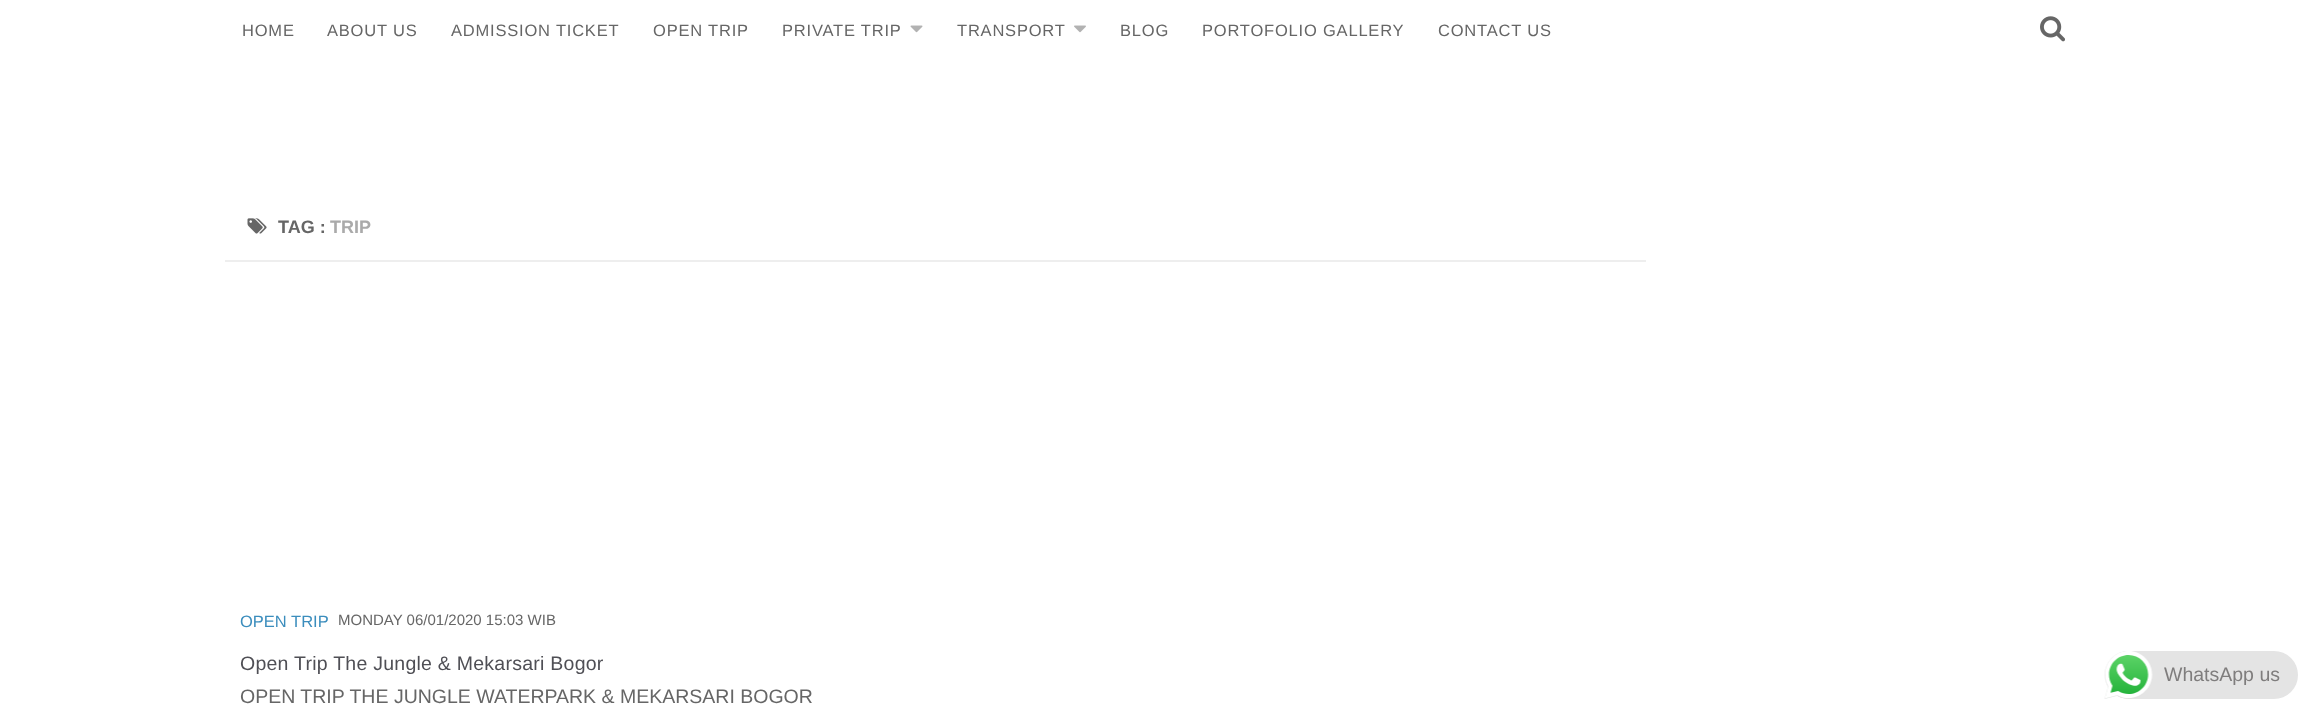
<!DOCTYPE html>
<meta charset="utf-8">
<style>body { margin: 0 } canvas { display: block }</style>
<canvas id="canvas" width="2320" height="721"></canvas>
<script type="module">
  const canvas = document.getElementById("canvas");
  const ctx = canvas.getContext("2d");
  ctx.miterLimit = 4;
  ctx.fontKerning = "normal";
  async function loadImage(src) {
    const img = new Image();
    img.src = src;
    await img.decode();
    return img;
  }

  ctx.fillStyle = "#ffffff";
  ctx.fillRect(0, 0, 2320, 721);
  ctx.letterSpacing = "0.8px";
  ctx.font = "16.5px Liberation Sans";
  ctx.fillStyle = "#666666";
  ctx.fillText("HOME", 242, 36);
  ctx.fillText("ABOUT US", 327, 36);
  ctx.fillText("ADMISSION TICKET", 451, 36);
  ctx.fillText("OPEN TRIP", 653, 36);
  ctx.fillText("PRIVATE TRIP", 782, 36);
  ctx.drawImage(await loadImage("img1.png"), 910, 25, 13, 8);
  ctx.fillText("TRANSPORT", 957, 36);
  ctx.drawImage(await loadImage("img2.png"), 1074, 25, 12, 8);
  ctx.fillText("BLOG", 1120, 36);
  ctx.fillText("PORTOFOLIO GALLERY", 1202, 36);
  ctx.fillText("CONTACT US", 1438, 36);
  ctx.drawImage(await loadImage("img3.png"), 2040, 16, 25, 26);
  ctx.fillStyle = "#eeeeee";
  ctx.fillRect(225, 260, 1421, 2);
  ctx.drawImage(await loadImage("img4.png"), 247, 218, 20, 16);
  ctx.letterSpacing = "0px";
  ctx.font = "bold 18px Liberation Sans";
  ctx.fillStyle = "#666666";
  ctx.fillText("TAG :", 278, 233);
  ctx.fillStyle = "#aaaaaa";
  ctx.fillText("TRIP", 330, 233);
  ctx.font = "16.5px Liberation Sans";
  ctx.fillStyle = "#3b8dbd";
  ctx.fillText("OPEN TRIP", 240, 627);
  ctx.font = "15px Liberation Sans";
  ctx.fillStyle = "#666666";
  ctx.fillText("MONDAY 06/01/2020 15:03 WIB", 338, 625);
  ctx.letterSpacing = "0.25px";
  ctx.font = "19.5px Liberation Sans";
  ctx.fillStyle = "#4f4f55";
  ctx.fillText("Open Trip The Jungle & Mekarsari Bogor", 240, 670);
  ctx.letterSpacing = "0px";
  ctx.fillStyle = "#666666";
  ctx.fillText("OPEN TRIP THE JUNGLE WATERPARK & MEKARSARI BOGOR", 240, 703);
  ctx.fillStyle = "#e4e4e4";
  ctx.beginPath();
  ctx.roundRect(2105, 651, 193, 48, 24);
  ctx.fill();
  ctx.drawImage(await loadImage("img5.png"), 2104, 651, 49, 48);
  ctx.fillStyle = "#7f7d7d";
  ctx.fillText("WhatsApp us", 2164, 681);
</script>
